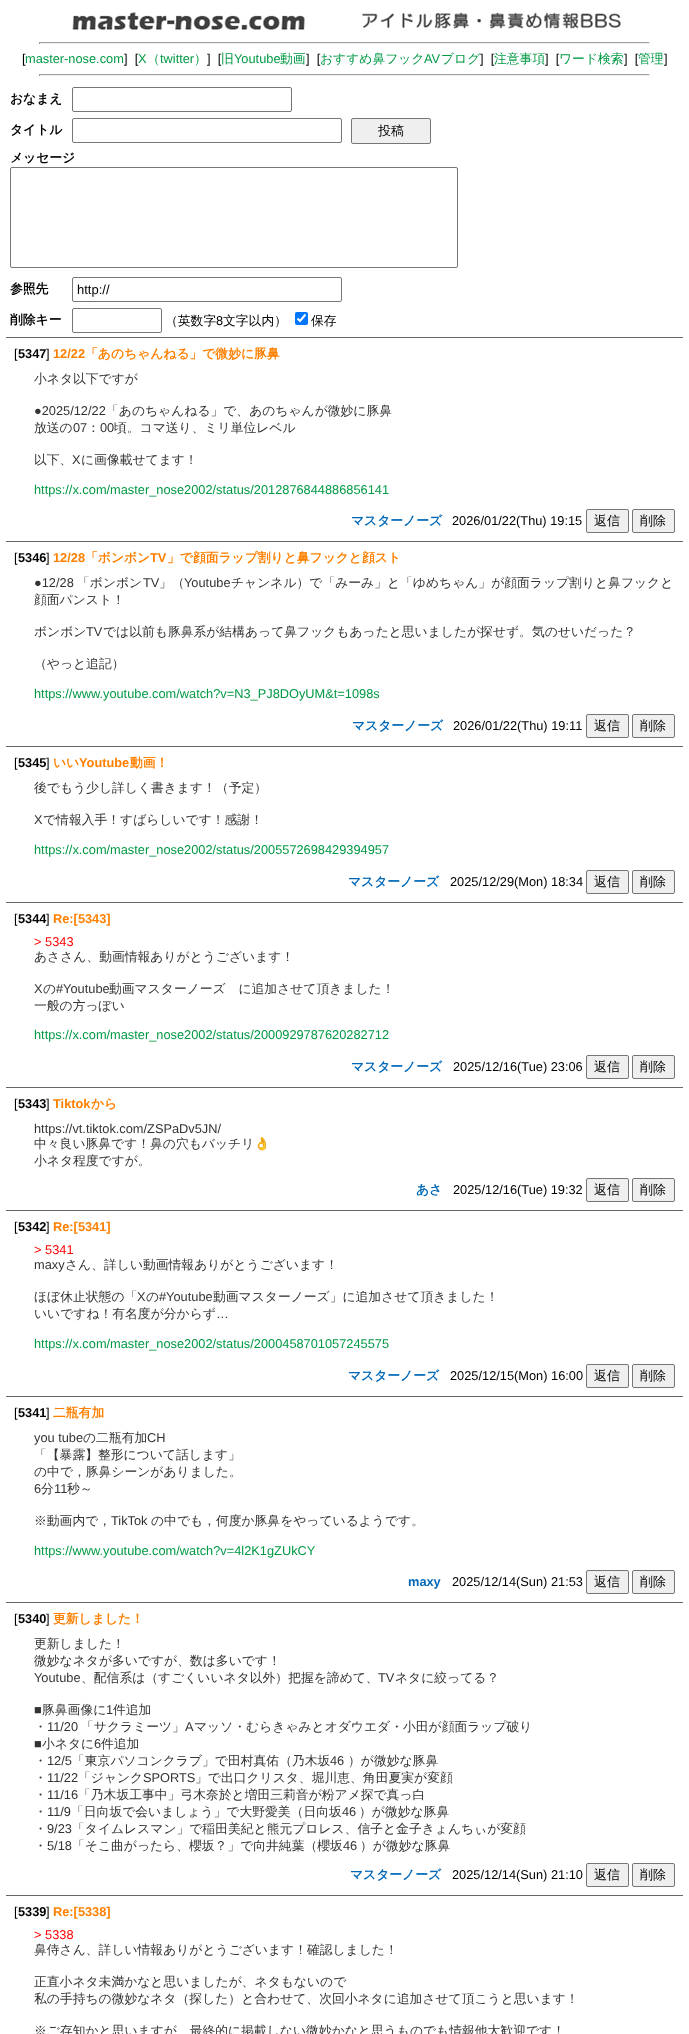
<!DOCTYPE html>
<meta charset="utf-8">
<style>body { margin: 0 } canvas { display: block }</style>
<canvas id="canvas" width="689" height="2034"></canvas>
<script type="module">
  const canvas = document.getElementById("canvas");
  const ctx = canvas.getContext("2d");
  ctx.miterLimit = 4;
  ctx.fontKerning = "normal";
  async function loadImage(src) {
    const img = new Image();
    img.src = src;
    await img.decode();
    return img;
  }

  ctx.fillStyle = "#ffffff";
  ctx.fillRect(0, 0, 689, 2034);
  ctx.drawImage(await loadImage("img1.png"), 72, 12, 233, 18);
  ctx.drawImage(await loadImage("img2.png"), 362, 12, 259, 17);
  ctx.fillStyle = "#9f9f9f";
  ctx.fillRect(39, 42, 611, 1);
  ctx.fillStyle = "#eeeeee";
  ctx.fillRect(649, 42, 1, 2);
  ctx.fillRect(39, 43, 611, 1);
  ctx.fillStyle = "#9f9f9f";
  ctx.fillRect(39, 42, 1, 2);
  ctx.font = "12.8px Liberation Sans";
  ctx.fillStyle = "#000000";
  ctx.fillText("[", 22, 63);
  ctx.fillStyle = "#009944";
  ctx.fillText("master-nose.com", 25, 63);
  ctx.fillStyle = "#000000";
  ctx.fillText("]  [", 124, 63);
  ctx.fillStyle = "#009944";
  ctx.fillText("X", 138, 63);
  ctx.font = "500 12.8px WenQuanYi Zen Hei";
  ctx.fillText("（", 147, 63);
  ctx.font = "12.8px Liberation Sans";
  ctx.fillText("twitter", 160, 63);
  ctx.font = "500 12.8px WenQuanYi Zen Hei";
  ctx.fillText("）", 194, 63);
  ctx.font = "12.8px Liberation Sans";
  ctx.fillStyle = "#000000";
  ctx.fillText("]  [", 207, 63);
  ctx.font = "500 12.8px WenQuanYi Zen Hei";
  ctx.fillStyle = "#009944";
  ctx.fillText("旧", 221, 63);
  ctx.font = "12.8px Liberation Sans";
  ctx.fillText("Youtube", 234, 63);
  ctx.font = "500 12.8px WenQuanYi Zen Hei";
  ctx.fillText("動画", 280, 63);
  ctx.font = "12.8px Liberation Sans";
  ctx.fillStyle = "#000000";
  ctx.fillText("]  [", 306, 63);
  ctx.font = "500 12.8px WenQuanYi Zen Hei";
  ctx.fillStyle = "#009944";
  ctx.fillText("おすすめ鼻フック", 320, 63);
  ctx.font = "12.8px Liberation Sans";
  ctx.fillText("AV", 424, 63);
  ctx.font = "500 12.8px WenQuanYi Zen Hei";
  ctx.fillText("ブログ", 441, 63);
  ctx.font = "12.8px Liberation Sans";
  ctx.fillStyle = "#000000";
  ctx.fillText("]  [", 480, 63);
  ctx.font = "500 12.8px WenQuanYi Zen Hei";
  ctx.fillStyle = "#009944";
  ctx.fillText("注意事項", 494, 63);
  ctx.font = "12.8px Liberation Sans";
  ctx.fillStyle = "#000000";
  ctx.fillText("]  [", 545, 63);
  ctx.font = "500 12.8px WenQuanYi Zen Hei";
  ctx.fillStyle = "#009944";
  ctx.fillText("ワード検索", 559, 63);
  ctx.font = "12.8px Liberation Sans";
  ctx.fillStyle = "#000000";
  ctx.fillText("]  [", 624, 63);
  ctx.font = "500 12.8px WenQuanYi Zen Hei";
  ctx.fillStyle = "#009944";
  ctx.fillText("管理", 638, 63);
  ctx.font = "12.8px Liberation Sans";
  ctx.fillStyle = "#000000";
  ctx.fillText("]", 664, 63);
  ctx.fillStyle = "#9f9f9f";
  ctx.fillRect(39, 74, 611, 1);
  ctx.fillStyle = "#eeeeee";
  ctx.fillRect(649, 74, 1, 2);
  ctx.fillRect(39, 75, 611, 1);
  ctx.fillStyle = "#9f9f9f";
  ctx.fillRect(39, 74, 1, 2);
  ctx.font = "bold 12.8px WenQuanYi Zen Hei";
  ctx.fillStyle = "#000000";
  ctx.fillText("おなまえ", 10, 103);
  ctx.beginPath();
  ctx.roundRect(72.5, 87.5, 219, 24, 1.5);
  ctx.strokeStyle = "#767676";
  ctx.stroke();
  ctx.fillText("タイトル", 10, 134);
  ctx.beginPath();
  ctx.roundRect(72.5, 118.5, 269, 24, 1.5);
  ctx.stroke();
  ctx.fillStyle = "#efefef";
  ctx.beginPath();
  ctx.roundRect(351.5, 118.5, 79, 25, 1.5);
  ctx.fill();
  ctx.stroke();
  ctx.font = "500 13px WenQuanYi Zen Hei";
  ctx.fillStyle = "#000000";
  ctx.fillText("投稿", 378, 135);
  ctx.font = "bold 12.8px WenQuanYi Zen Hei";
  ctx.fillText("メッセージ", 10, 162);
  ctx.beginPath();
  ctx.roundRect(10.5, 167.5, 447, 100, 1.5);
  ctx.stroke();
  ctx.fillText("参照先", 10, 293);
  ctx.beginPath();
  ctx.roundRect(72.5, 277.5, 269, 24, 1.5);
  ctx.stroke();
  ctx.font = "13px Liberation Sans";
  ctx.fillText("http://", 77, 294);
  ctx.font = "bold 12.8px WenQuanYi Zen Hei";
  ctx.fillText("削除キー", 10, 324);
  ctx.beginPath();
  ctx.roundRect(72.5, 308.5, 89, 24, 1.5);
  ctx.stroke();
  ctx.font = "500 12.8px WenQuanYi Zen Hei";
  ctx.fillText("（英数字", 165, 325);
  ctx.font = "12.8px Liberation Sans";
  ctx.fillText("8", 216, 325);
  ctx.font = "500 12.8px WenQuanYi Zen Hei";
  ctx.fillText("文字以内）", 223, 325);
  ctx.fillStyle = "#0075ff";
  ctx.beginPath();
  ctx.roundRect(295, 312, 13, 13, 2);
  ctx.fill();
  ctx.beginPath();
  ctx.moveTo(297.5, 318.5);
  ctx.lineTo(300, 321);
  ctx.lineTo(305.5, 314.5);
  ctx.strokeStyle = "#ffffff";
  ctx.lineWidth = 2.1;
  ctx.stroke();
  ctx.fillStyle = "#000000";
  ctx.fillText("保存", 311, 325);
  ctx.fillStyle = "#666666";
  ctx.fillRect(6, 337, 677, 1);
  ctx.font = "12.8px Liberation Sans";
  ctx.fillStyle = "#000000";
  ctx.fillText("[", 14, 358);
  ctx.font = "bold 12.8px Liberation Sans";
  ctx.fillText("5347", 18, 358);
  ctx.font = "12.8px Liberation Sans";
  ctx.fillText("]", 46, 358);
  ctx.font = "bold 12.8px Liberation Sans";
  ctx.fillStyle = "#ff8000";
  ctx.fillText("12/22", 53, 358);
  ctx.font = "bold 12.8px WenQuanYi Zen Hei";
  ctx.fillText("「あのちゃんねる」で微妙に豚鼻", 85, 358);
  ctx.font = "500 12.8px WenQuanYi Zen Hei";
  ctx.fillStyle = "#333333";
  ctx.fillText("小ネタ以下ですが", 34, 383);
  ctx.font = "12.8px Liberation Sans";
  ctx.fillText("●2025/12/22", 34, 415);
  ctx.font = "500 12.8px WenQuanYi Zen Hei";
  ctx.fillText("「あのちゃんねる」で、あのちゃんが微妙に豚鼻", 106, 415);
  ctx.fillText("放送の", 34, 432);
  ctx.font = "12.8px Liberation Sans";
  ctx.fillText("07", 73, 432);
  ctx.font = "500 12.8px WenQuanYi Zen Hei";
  ctx.fillText("：", 87, 432);
  ctx.font = "12.8px Liberation Sans";
  ctx.fillText("00", 100, 432);
  ctx.font = "500 12.8px WenQuanYi Zen Hei";
  ctx.fillText("頃。コマ送り、ミリ単位レベル", 114, 432);
  ctx.fillText("以下、", 34, 464);
  ctx.font = "12.8px Liberation Sans";
  ctx.fillText("X", 72, 464);
  ctx.font = "500 12.8px WenQuanYi Zen Hei";
  ctx.fillText("に画像載せてます！", 81, 464);
  ctx.font = "12.8px Liberation Sans";
  ctx.fillStyle = "#009944";
  ctx.fillText("https://x.com/master_nose2002/status/2012876844886856141", 34, 494);
  ctx.font = "bold 12.8px WenQuanYi Zen Hei";
  ctx.fillStyle = "#0068b7";
  ctx.fillText("マスターノーズ", 351, 525);
  ctx.font = "12.8px Liberation Sans";
  ctx.fillStyle = "#000000";
  ctx.fillText("2026/01/22(Thu) 19:15", 452, 525);
  ctx.fillStyle = "#efefef";
  ctx.beginPath();
  ctx.roundRect(586.5, 509.5, 42, 23, 1.5);
  ctx.fill();
  ctx.strokeStyle = "#767676";
  ctx.lineWidth = 1;
  ctx.stroke();
  ctx.font = "500 13px WenQuanYi Zen Hei";
  ctx.fillStyle = "#000000";
  ctx.fillText("返信", 594, 525);
  ctx.fillStyle = "#efefef";
  ctx.beginPath();
  ctx.roundRect(632.5, 509.5, 42, 23, 1.5);
  ctx.fill();
  ctx.stroke();
  ctx.fillStyle = "#000000";
  ctx.fillText("削除", 640, 525);
  ctx.fillStyle = "#666666";
  ctx.fillRect(6, 541, 677, 1);
  ctx.font = "12.8px Liberation Sans";
  ctx.fillStyle = "#000000";
  ctx.fillText("[", 14, 562);
  ctx.font = "bold 12.8px Liberation Sans";
  ctx.fillText("5346", 18, 562);
  ctx.font = "12.8px Liberation Sans";
  ctx.fillText("]", 46, 562);
  ctx.font = "bold 12.8px Liberation Sans";
  ctx.fillStyle = "#ff8000";
  ctx.fillText("12/28", 53, 562);
  ctx.font = "bold 12.8px WenQuanYi Zen Hei";
  ctx.fillText("「ボンボン", 85, 562);
  ctx.font = "bold 12.8px Liberation Sans";
  ctx.fillText("TV", 150, 562);
  ctx.font = "bold 12.8px WenQuanYi Zen Hei";
  ctx.fillText("」で顔面ラップ割りと鼻フックと顔スト", 167, 562);
  ctx.font = "12.8px Liberation Sans";
  ctx.fillStyle = "#333333";
  ctx.fillText("●12/28", 34, 587);
  ctx.font = "500 12.8px WenQuanYi Zen Hei";
  ctx.fillText("「ボンボン", 77, 587);
  ctx.font = "12.8px Liberation Sans";
  ctx.fillText("TV", 143, 587);
  ctx.font = "500 12.8px WenQuanYi Zen Hei";
  ctx.fillText("」（", 159, 587);
  ctx.font = "12.8px Liberation Sans";
  ctx.fillText("Youtube", 184, 587);
  ctx.font = "500 12.8px WenQuanYi Zen Hei";
  ctx.fillText("チャンネル）で「みーみ」と「ゆめちゃん」が顔面ラップ割りと鼻フックと", 231, 587);
  ctx.fillText("顔面パンスト！", 34, 604);
  ctx.fillText("ボンボン", 34, 636);
  ctx.font = "12.8px Liberation Sans";
  ctx.fillText("TV", 86, 636);
  ctx.font = "500 12.8px WenQuanYi Zen Hei";
  ctx.fillText("では以前も豚鼻系が結構あって鼻フックもあったと思いましたが探せず。気のせいだった？", 103, 636);
  ctx.fillText("（やっと追記）", 34, 668);
  ctx.font = "12.8px Liberation Sans";
  ctx.fillStyle = "#009944";
  ctx.fillText("https://www.youtube.com/watch?v=N3_PJ8DOyUM&t=1098s", 34, 698);
  ctx.font = "bold 12.8px WenQuanYi Zen Hei";
  ctx.fillStyle = "#0068b7";
  ctx.fillText("マスターノーズ", 352, 730);
  ctx.font = "12.8px Liberation Sans";
  ctx.fillStyle = "#000000";
  ctx.fillText("2026/01/22(Thu) 19:11", 453, 730);
  ctx.fillStyle = "#efefef";
  ctx.beginPath();
  ctx.roundRect(586.5, 714.5, 42, 23, 1.5);
  ctx.fill();
  ctx.stroke();
  ctx.font = "500 13px WenQuanYi Zen Hei";
  ctx.fillStyle = "#000000";
  ctx.fillText("返信", 594, 730);
  ctx.fillStyle = "#efefef";
  ctx.beginPath();
  ctx.roundRect(632.5, 714.5, 42, 23, 1.5);
  ctx.fill();
  ctx.stroke();
  ctx.fillStyle = "#000000";
  ctx.fillText("削除", 640, 730);
  ctx.fillStyle = "#666666";
  ctx.fillRect(6, 746, 677, 1);
  ctx.font = "12.8px Liberation Sans";
  ctx.fillStyle = "#000000";
  ctx.fillText("[", 14, 767);
  ctx.font = "bold 12.8px Liberation Sans";
  ctx.fillText("5345", 18, 767);
  ctx.font = "12.8px Liberation Sans";
  ctx.fillText("]", 46, 767);
  ctx.font = "bold 12.8px WenQuanYi Zen Hei";
  ctx.fillStyle = "#ff8000";
  ctx.fillText("いい", 53, 767);
  ctx.font = "bold 12.8px Liberation Sans";
  ctx.fillText("Youtube", 79, 767);
  ctx.font = "bold 12.8px WenQuanYi Zen Hei";
  ctx.fillText("動画！", 130, 767);
  ctx.font = "500 12.8px WenQuanYi Zen Hei";
  ctx.fillStyle = "#333333";
  ctx.fillText("後でもう少し詳しく書きます！（予定）", 34, 792);
  ctx.font = "12.8px Liberation Sans";
  ctx.fillText("X", 34, 824);
  ctx.font = "500 12.8px WenQuanYi Zen Hei";
  ctx.fillText("で情報入手！すばらしいです！感謝！", 43, 824);
  ctx.font = "12.8px Liberation Sans";
  ctx.fillStyle = "#009944";
  ctx.fillText("https://x.com/master_nose2002/status/2005572698429394957", 34, 854);
  ctx.font = "bold 12.8px WenQuanYi Zen Hei";
  ctx.fillStyle = "#0068b7";
  ctx.fillText("マスターノーズ", 348, 886);
  ctx.font = "12.8px Liberation Sans";
  ctx.fillStyle = "#000000";
  ctx.fillText("2025/12/29(Mon) 18:34", 450, 886);
  ctx.fillStyle = "#efefef";
  ctx.beginPath();
  ctx.roundRect(586.5, 870.5, 42, 23, 1.5);
  ctx.fill();
  ctx.stroke();
  ctx.font = "500 13px WenQuanYi Zen Hei";
  ctx.fillStyle = "#000000";
  ctx.fillText("返信", 594, 886);
  ctx.fillStyle = "#efefef";
  ctx.beginPath();
  ctx.roundRect(632.5, 870.5, 42, 23, 1.5);
  ctx.fill();
  ctx.stroke();
  ctx.fillStyle = "#000000";
  ctx.fillText("削除", 640, 886);
  ctx.fillStyle = "#666666";
  ctx.fillRect(6, 902, 677, 1);
  ctx.font = "12.8px Liberation Sans";
  ctx.fillStyle = "#000000";
  ctx.fillText("[", 14, 923);
  ctx.font = "bold 12.8px Liberation Sans";
  ctx.fillText("5344", 18, 923);
  ctx.font = "12.8px Liberation Sans";
  ctx.fillText("]", 46, 923);
  ctx.font = "bold 12.8px Liberation Sans";
  ctx.fillStyle = "#ff8000";
  ctx.fillText("Re:[5343]", 53, 923);
  ctx.font = "12.8px Liberation Sans";
  ctx.fillStyle = "#ff0000";
  ctx.fillText("> 5343", 34, 946);
  ctx.font = "500 12.8px WenQuanYi Zen Hei";
  ctx.fillStyle = "#333333";
  ctx.fillText("あささん、動画情報ありがとうございます！", 34, 961);
  ctx.font = "12.8px Liberation Sans";
  ctx.fillText("X", 34, 993);
  ctx.font = "500 12.8px WenQuanYi Zen Hei";
  ctx.fillText("の", 43, 993);
  ctx.font = "12.8px Liberation Sans";
  ctx.fillText("#Youtube", 56, 993);
  ctx.font = "500 12.8px WenQuanYi Zen Hei";
  ctx.fillText("動画マスターノーズ　に追加させて頂きました！", 109, 993);
  ctx.fillText("一般の方っぽい", 34, 1010);
  ctx.font = "12.8px Liberation Sans";
  ctx.fillStyle = "#009944";
  ctx.fillText("https://x.com/master_nose2002/status/2000929787620282712", 34, 1039);
  ctx.font = "bold 12.8px WenQuanYi Zen Hei";
  ctx.fillStyle = "#0068b7";
  ctx.fillText("マスターノーズ", 351, 1071);
  ctx.font = "12.8px Liberation Sans";
  ctx.fillStyle = "#000000";
  ctx.fillText("2025/12/16(Tue) 23:06", 453, 1071);
  ctx.fillStyle = "#efefef";
  ctx.beginPath();
  ctx.roundRect(586.5, 1055.5, 42, 23, 1.5);
  ctx.fill();
  ctx.stroke();
  ctx.font = "500 13px WenQuanYi Zen Hei";
  ctx.fillStyle = "#000000";
  ctx.fillText("返信", 594, 1071);
  ctx.fillStyle = "#efefef";
  ctx.beginPath();
  ctx.roundRect(632.5, 1055.5, 42, 23, 1.5);
  ctx.fill();
  ctx.stroke();
  ctx.fillStyle = "#000000";
  ctx.fillText("削除", 640, 1071);
  ctx.fillStyle = "#666666";
  ctx.fillRect(6, 1087, 677, 1);
  ctx.font = "12.8px Liberation Sans";
  ctx.fillStyle = "#000000";
  ctx.fillText("[", 14, 1108);
  ctx.font = "bold 12.8px Liberation Sans";
  ctx.fillText("5343", 18, 1108);
  ctx.font = "12.8px Liberation Sans";
  ctx.fillText("]", 46, 1108);
  ctx.font = "bold 12.8px Liberation Sans";
  ctx.fillStyle = "#ff8000";
  ctx.fillText("Tiktok", 53, 1108);
  ctx.font = "bold 12.8px WenQuanYi Zen Hei";
  ctx.fillText("から", 91, 1108);
  ctx.font = "12.8px Liberation Sans";
  ctx.fillStyle = "#333333";
  ctx.fillText("https://vt.tiktok.com/ZSPaDv5JN/", 34, 1133);
  ctx.font = "500 12.8px WenQuanYi Zen Hei";
  ctx.fillText("中々良い豚鼻です！鼻の穴もバッチリ", 34, 1148);
  ctx.font = "12.8px Noto Color Emoji";
  ctx.fillText("👌", 254, 1148);
  ctx.font = "500 12.8px WenQuanYi Zen Hei";
  ctx.fillText("小ネタ程度ですが。", 34, 1165);
  ctx.font = "bold 12.8px WenQuanYi Zen Hei";
  ctx.fillStyle = "#0068b7";
  ctx.fillText("あさ", 416, 1194);
  ctx.font = "12.8px Liberation Sans";
  ctx.fillStyle = "#000000";
  ctx.fillText("2025/12/16(Tue) 19:32", 453, 1194);
  ctx.fillStyle = "#efefef";
  ctx.beginPath();
  ctx.roundRect(586.5, 1178.5, 42, 23, 1.5);
  ctx.fill();
  ctx.stroke();
  ctx.font = "500 13px WenQuanYi Zen Hei";
  ctx.fillStyle = "#000000";
  ctx.fillText("返信", 594, 1194);
  ctx.fillStyle = "#efefef";
  ctx.beginPath();
  ctx.roundRect(632.5, 1178.5, 42, 23, 1.5);
  ctx.fill();
  ctx.stroke();
  ctx.fillStyle = "#000000";
  ctx.fillText("削除", 640, 1194);
  ctx.fillStyle = "#666666";
  ctx.fillRect(6, 1210, 677, 1);
  ctx.font = "12.8px Liberation Sans";
  ctx.fillStyle = "#000000";
  ctx.fillText("[", 14, 1231);
  ctx.font = "bold 12.8px Liberation Sans";
  ctx.fillText("5342", 18, 1231);
  ctx.font = "12.8px Liberation Sans";
  ctx.fillText("]", 46, 1231);
  ctx.font = "bold 12.8px Liberation Sans";
  ctx.fillStyle = "#ff8000";
  ctx.fillText("Re:[5341]", 53, 1231);
  ctx.font = "12.8px Liberation Sans";
  ctx.fillStyle = "#ff0000";
  ctx.fillText("> 5341", 34, 1254);
  ctx.fillStyle = "#333333";
  ctx.fillText("maxy", 34, 1269);
  ctx.font = "500 12.8px WenQuanYi Zen Hei";
  ctx.fillText("さん、詳しい動画情報ありがとうございます！", 65, 1269);
  ctx.fillText("ほぼ休止状態の「", 34, 1301);
  ctx.font = "12.8px Liberation Sans";
  ctx.fillText("X", 137, 1301);
  ctx.font = "500 12.8px WenQuanYi Zen Hei";
  ctx.fillText("の", 146, 1301);
  ctx.font = "12.8px Liberation Sans";
  ctx.fillText("#Youtube", 159, 1301);
  ctx.font = "500 12.8px WenQuanYi Zen Hei";
  ctx.fillText("動画マスターノーズ」に追加させて頂きました！", 213, 1301);
  ctx.fillText("いいですね！有名度が分からず", 34, 1318);
  ctx.font = "12.8px Liberation Sans";
  ctx.fillText("…", 216, 1318);
  ctx.fillStyle = "#009944";
  ctx.fillText("https://x.com/master_nose2002/status/2000458701057245575", 34, 1348);
  ctx.font = "bold 12.8px WenQuanYi Zen Hei";
  ctx.fillStyle = "#0068b7";
  ctx.fillText("マスターノーズ", 348, 1380);
  ctx.font = "12.8px Liberation Sans";
  ctx.fillStyle = "#000000";
  ctx.fillText("2025/12/15(Mon) 16:00", 450, 1380);
  ctx.fillStyle = "#efefef";
  ctx.beginPath();
  ctx.roundRect(586.5, 1364.5, 42, 23, 1.5);
  ctx.fill();
  ctx.stroke();
  ctx.font = "500 13px WenQuanYi Zen Hei";
  ctx.fillStyle = "#000000";
  ctx.fillText("返信", 594, 1380);
  ctx.fillStyle = "#efefef";
  ctx.beginPath();
  ctx.roundRect(632.5, 1364.5, 42, 23, 1.5);
  ctx.fill();
  ctx.stroke();
  ctx.fillStyle = "#000000";
  ctx.fillText("削除", 640, 1380);
  ctx.fillStyle = "#666666";
  ctx.fillRect(6, 1396, 677, 1);
  ctx.font = "12.8px Liberation Sans";
  ctx.fillStyle = "#000000";
  ctx.fillText("[", 14, 1417);
  ctx.font = "bold 12.8px Liberation Sans";
  ctx.fillText("5341", 18, 1417);
  ctx.font = "12.8px Liberation Sans";
  ctx.fillText("]", 46, 1417);
  ctx.font = "bold 12.8px WenQuanYi Zen Hei";
  ctx.fillStyle = "#ff8000";
  ctx.fillText("二瓶有加", 53, 1417);
  ctx.font = "12.8px Liberation Sans";
  ctx.fillStyle = "#333333";
  ctx.fillText("you tube", 34, 1442);
  ctx.font = "500 12.8px WenQuanYi Zen Hei";
  ctx.fillText("の二瓶有加", 83, 1442);
  ctx.font = "12.8px Liberation Sans";
  ctx.fillText("CH", 147, 1442);
  ctx.font = "500 12.8px WenQuanYi Zen Hei";
  ctx.fillText("「【暴露】整形について話します」", 34, 1459);
  ctx.fillText("の中で，豚鼻シーンがありました。", 34, 1476);
  ctx.font = "12.8px Liberation Sans";
  ctx.fillText("6", 34, 1493);
  ctx.font = "500 12.8px WenQuanYi Zen Hei";
  ctx.fillText("分", 41, 1493);
  ctx.font = "12.8px Liberation Sans";
  ctx.fillText("11", 54, 1493);
  ctx.font = "500 12.8px WenQuanYi Zen Hei";
  ctx.fillText("秒～", 67, 1493);
  ctx.fillText("※動画内で，", 34, 1525);
  ctx.font = "12.8px Liberation Sans";
  ctx.fillText("TikTok", 111, 1525);
  ctx.font = "500 12.8px WenQuanYi Zen Hei";
  ctx.fillText("の中でも，何度か豚鼻をやっているようです。", 151, 1525);
  ctx.font = "12.8px Liberation Sans";
  ctx.fillStyle = "#009944";
  ctx.fillText("https://www.youtube.com/watch?v=4l2K1gZUkCY", 34, 1555);
  ctx.font = "bold 12.8px Liberation Sans";
  ctx.fillStyle = "#0068b7";
  ctx.fillText("maxy", 408, 1586);
  ctx.font = "12.8px Liberation Sans";
  ctx.fillStyle = "#000000";
  ctx.fillText("2025/12/14(Sun) 21:53", 452, 1586);
  ctx.fillStyle = "#efefef";
  ctx.beginPath();
  ctx.roundRect(586.5, 1570.5, 42, 23, 1.5);
  ctx.fill();
  ctx.stroke();
  ctx.font = "500 13px WenQuanYi Zen Hei";
  ctx.fillStyle = "#000000";
  ctx.fillText("返信", 594, 1586);
  ctx.fillStyle = "#efefef";
  ctx.beginPath();
  ctx.roundRect(632.5, 1570.5, 42, 23, 1.5);
  ctx.fill();
  ctx.stroke();
  ctx.fillStyle = "#000000";
  ctx.fillText("削除", 640, 1586);
  ctx.fillStyle = "#666666";
  ctx.fillRect(6, 1602, 677, 1);
  ctx.font = "12.8px Liberation Sans";
  ctx.fillStyle = "#000000";
  ctx.fillText("[", 14, 1623);
  ctx.font = "bold 12.8px Liberation Sans";
  ctx.fillText("5340", 18, 1623);
  ctx.font = "12.8px Liberation Sans";
  ctx.fillText("]", 46, 1623);
  ctx.font = "bold 12.8px WenQuanYi Zen Hei";
  ctx.fillStyle = "#ff8000";
  ctx.fillText("更新しました！", 53, 1623);
  ctx.font = "500 12.8px WenQuanYi Zen Hei";
  ctx.fillStyle = "#333333";
  ctx.fillText("更新しました！", 34, 1648);
  ctx.fillText("微妙なネタが多いですが、数は多いです！", 34, 1665);
  ctx.font = "12.8px Liberation Sans";
  ctx.fillText("Youtube", 34, 1682);
  ctx.font = "500 12.8px WenQuanYi Zen Hei";
  ctx.fillText("、配信系は（すごくいいネタ以外）把握を諦めて、", 81, 1682);
  ctx.font = "12.8px Liberation Sans";
  ctx.fillText("TV", 378, 1682);
  ctx.font = "500 12.8px WenQuanYi Zen Hei";
  ctx.fillText("ネタに絞ってる？", 395, 1682);
  ctx.font = "12.8px Liberation Sans";
  ctx.fillText("■", 34, 1714);
  ctx.font = "500 12.8px WenQuanYi Zen Hei";
  ctx.fillText("豚鼻画像に", 42, 1714);
  ctx.font = "12.8px Liberation Sans";
  ctx.fillText("1", 106, 1714);
  ctx.font = "500 12.8px WenQuanYi Zen Hei";
  ctx.fillText("件追加", 113, 1714);
  ctx.fillText("・", 34, 1731);
  ctx.font = "12.8px Liberation Sans";
  ctx.fillText("11/20", 47, 1731);
  ctx.font = "500 12.8px WenQuanYi Zen Hei";
  ctx.fillText("「サクラミーツ」", 81, 1731);
  ctx.font = "12.8px Liberation Sans";
  ctx.fillText("A", 185, 1731);
  ctx.font = "500 12.8px WenQuanYi Zen Hei";
  ctx.fillText("マッソ・むらきゃみとオダウエダ・小田が顔面ラップ破り", 194, 1731);
  ctx.font = "12.8px Liberation Sans";
  ctx.fillText("■", 34, 1748);
  ctx.font = "500 12.8px WenQuanYi Zen Hei";
  ctx.fillText("小ネタに", 42, 1748);
  ctx.font = "12.8px Liberation Sans";
  ctx.fillText("6", 94, 1748);
  ctx.font = "500 12.8px WenQuanYi Zen Hei";
  ctx.fillText("件追加", 101, 1748);
  ctx.fillText("・", 34, 1765);
  ctx.font = "12.8px Liberation Sans";
  ctx.fillText("12/5", 47, 1765);
  ctx.font = "500 12.8px WenQuanYi Zen Hei";
  ctx.fillText("「東京パソコンクラブ」で田村真佑（乃木坂", 72, 1765);
  ctx.font = "12.8px Liberation Sans";
  ctx.fillText("46", 330, 1765);
  ctx.font = "500 12.8px WenQuanYi Zen Hei";
  ctx.fillText("）が微妙な豚鼻", 348, 1765);
  ctx.fillText("・", 34, 1782);
  ctx.font = "12.8px Liberation Sans";
  ctx.fillText("11/22", 47, 1782);
  ctx.font = "500 12.8px WenQuanYi Zen Hei";
  ctx.fillText("「ジャンク", 78, 1782);
  ctx.font = "12.8px Liberation Sans";
  ctx.fillText("SPORTS", 143, 1782);
  ctx.font = "500 12.8px WenQuanYi Zen Hei";
  ctx.fillText("」で出口クリスタ、堀川恵、角田夏実が変顔", 195, 1782);
  ctx.fillText("・", 34, 1799);
  ctx.font = "12.8px Liberation Sans";
  ctx.fillText("11/16", 47, 1799);
  ctx.font = "500 12.8px WenQuanYi Zen Hei";
  ctx.fillText("「乃木坂工事中」弓木奈於と増田三莉音が粉アメ探で真っ白", 78, 1799);
  ctx.fillText("・", 34, 1816);
  ctx.font = "12.8px Liberation Sans";
  ctx.fillText("11/9", 47, 1816);
  ctx.font = "500 12.8px WenQuanYi Zen Hei";
  ctx.fillText("「日向坂で会いましょう」で大野愛美（日向坂", 71, 1816);
  ctx.font = "12.8px Liberation Sans";
  ctx.fillText("46", 342, 1816);
  ctx.font = "500 12.8px WenQuanYi Zen Hei";
  ctx.fillText("）が微妙な豚鼻", 359, 1816);
  ctx.fillText("・", 34, 1833);
  ctx.font = "12.8px Liberation Sans";
  ctx.fillText("9/23", 47, 1833);
  ctx.font = "500 12.8px WenQuanYi Zen Hei";
  ctx.fillText("「タイムレスマン」で稲田美紀と熊元プロレス、信子と金子きょんちぃが変顔", 72, 1833);
  ctx.fillText("・", 34, 1850);
  ctx.font = "12.8px Liberation Sans";
  ctx.fillText("5/18", 47, 1850);
  ctx.font = "500 12.8px WenQuanYi Zen Hei";
  ctx.fillText("「そこ曲がったら、櫻坂？」で向井純葉（櫻坂", 72, 1850);
  ctx.font = "12.8px Liberation Sans";
  ctx.fillText("46", 343, 1850);
  ctx.font = "500 12.8px WenQuanYi Zen Hei";
  ctx.fillText("）が微妙な豚鼻", 360, 1850);
  ctx.font = "bold 12.8px WenQuanYi Zen Hei";
  ctx.fillStyle = "#0068b7";
  ctx.fillText("マスターノーズ", 350, 1879);
  ctx.font = "12.8px Liberation Sans";
  ctx.fillStyle = "#000000";
  ctx.fillText("2025/12/14(Sun) 21:10", 452, 1879);
  ctx.fillStyle = "#efefef";
  ctx.beginPath();
  ctx.roundRect(586.5, 1863.5, 42, 23, 1.5);
  ctx.fill();
  ctx.stroke();
  ctx.font = "500 13px WenQuanYi Zen Hei";
  ctx.fillStyle = "#000000";
  ctx.fillText("返信", 594, 1879);
  ctx.fillStyle = "#efefef";
  ctx.beginPath();
  ctx.roundRect(632.5, 1863.5, 42, 23, 1.5);
  ctx.fill();
  ctx.stroke();
  ctx.fillStyle = "#000000";
  ctx.fillText("削除", 640, 1879);
  ctx.fillStyle = "#666666";
  ctx.fillRect(6, 1895, 677, 1);
  ctx.font = "12.8px Liberation Sans";
  ctx.fillStyle = "#000000";
  ctx.fillText("[", 14, 1916);
  ctx.font = "bold 12.8px Liberation Sans";
  ctx.fillText("5339", 18, 1916);
  ctx.font = "12.8px Liberation Sans";
  ctx.fillText("]", 46, 1916);
  ctx.font = "bold 12.8px Liberation Sans";
  ctx.fillStyle = "#ff8000";
  ctx.fillText("Re:[5338]", 53, 1916);
  ctx.font = "12.8px Liberation Sans";
  ctx.fillStyle = "#ff0000";
  ctx.fillText("> 5338", 34, 1939);
  ctx.font = "500 12.8px WenQuanYi Zen Hei";
  ctx.fillStyle = "#333333";
  ctx.fillText("鼻侍さん、詳しい情報ありがとうございます！確認しました！", 34, 1954);
  ctx.fillText("正直小ネタ未満かなと思いましたが、ネタもないので", 34, 1986);
  ctx.fillText("私の手持ちの微妙なネタ（探した）と合わせて、次回小ネタに追加させて頂こうと思います！", 34, 2003);
  ctx.fillText("※ご存知かと思いますが、最終的に掲載しない微妙かなと思うものでも情報他大歓迎です！", 34, 2035);
</script>
